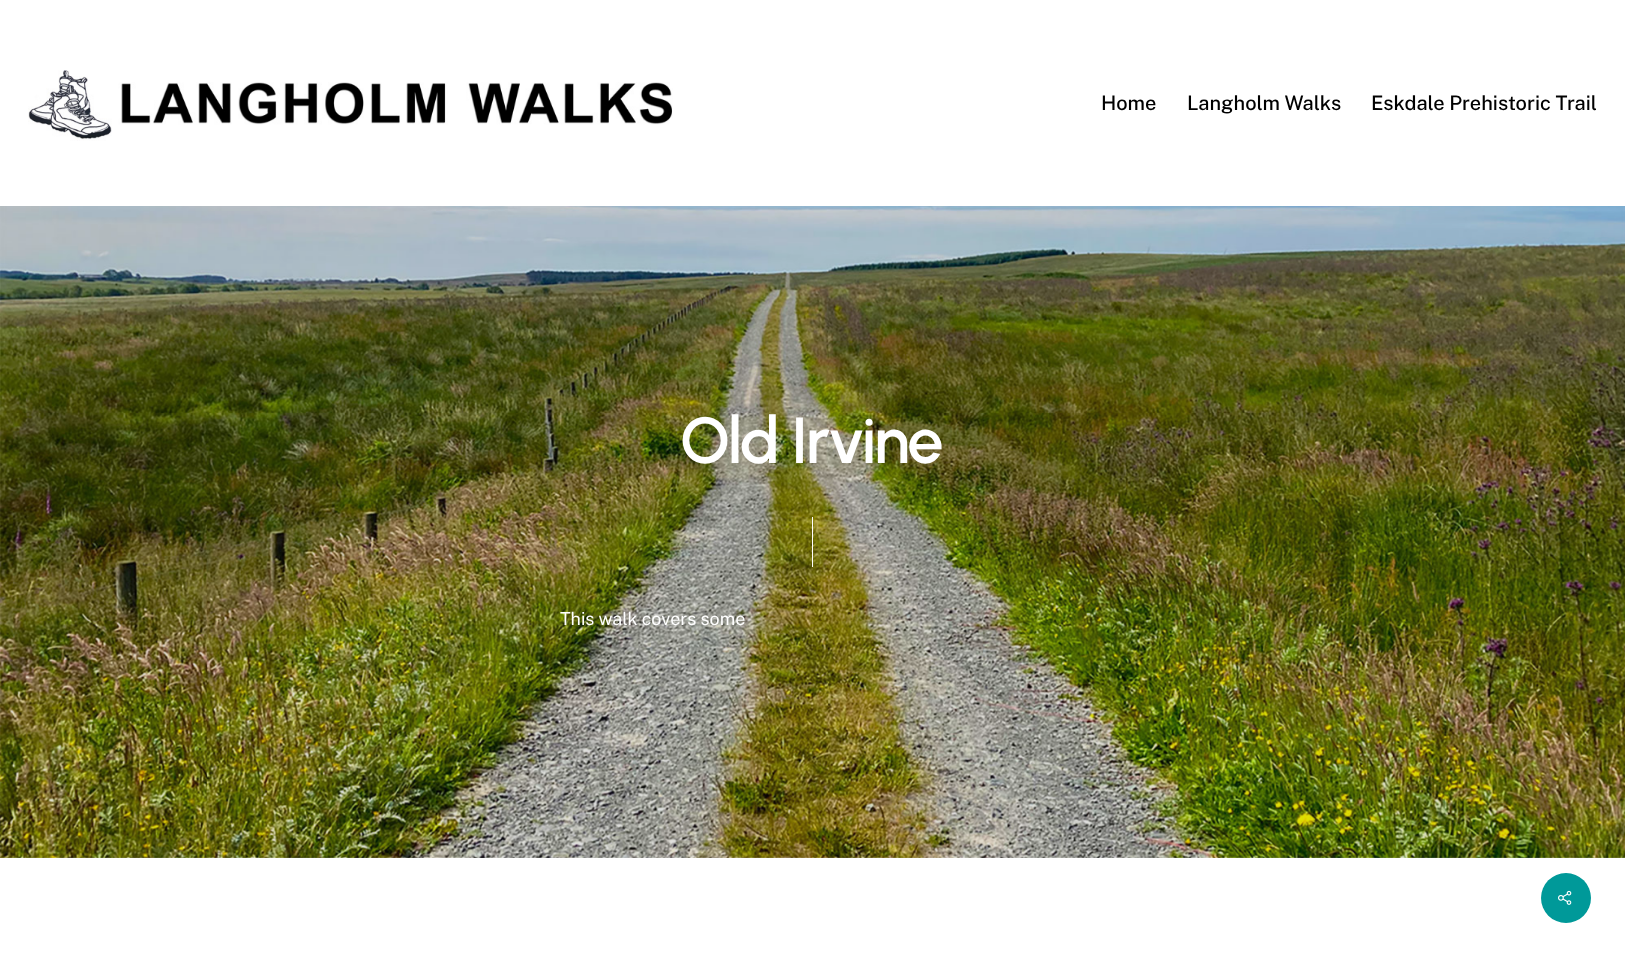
<!DOCTYPE html>
<meta charset="utf-8">
<style>body { margin: 0 } canvas { display: block }</style>
<canvas id="canvas" width="1625" height="957"></canvas>
<script type="module">
  const canvas = document.getElementById("canvas");
  const ctx = canvas.getContext("2d");
  ctx.miterLimit = 4;
  ctx.fontKerning = "normal";
  async function loadImage(src) {
    const img = new Image();
    img.src = src;
    await img.decode();
    return img;
  }

  ctx.fillStyle = "#ffffff";
  ctx.fillRect(0, 0, 1625, 957);
  ctx.drawImage(await loadImage("img1.png"), 28, 70, 645, 71);
  ctx.font = "500 20px Public Sans";
  ctx.fillStyle = "#000000";
  ctx.fillText("Home", 1101, 110);
  ctx.fillText("Langholm Walks", 1187, 110);
  ctx.fillText("Eskdale Prehistoric Trail", 1371, 110);
  ctx.drawImage(await loadImage("img2.png"), 0, 206, 1625, 652);
  ctx.letterSpacing = "-2px";
  ctx.font = "600 65px Urbanist";
  ctx.fillStyle = "#ffffff";
  ctx.fillText("Old Irvine", 680, 463);
  ctx.fillRect(812, 517, 1, 50);
  ctx.letterSpacing = "0px";
  ctx.font = "17.9px Public Sans";
  ctx.fillText("This walk covers some", 560, 625);
  ctx.fillStyle = "#009999";
  ctx.beginPath();
  ctx.arc(1566, 898, 25, 0, Math.PI * 2);
  ctx.fill();
  ctx.drawImage(await loadImage("img3.png"), 1558, 890, 14, 15);
</script>
